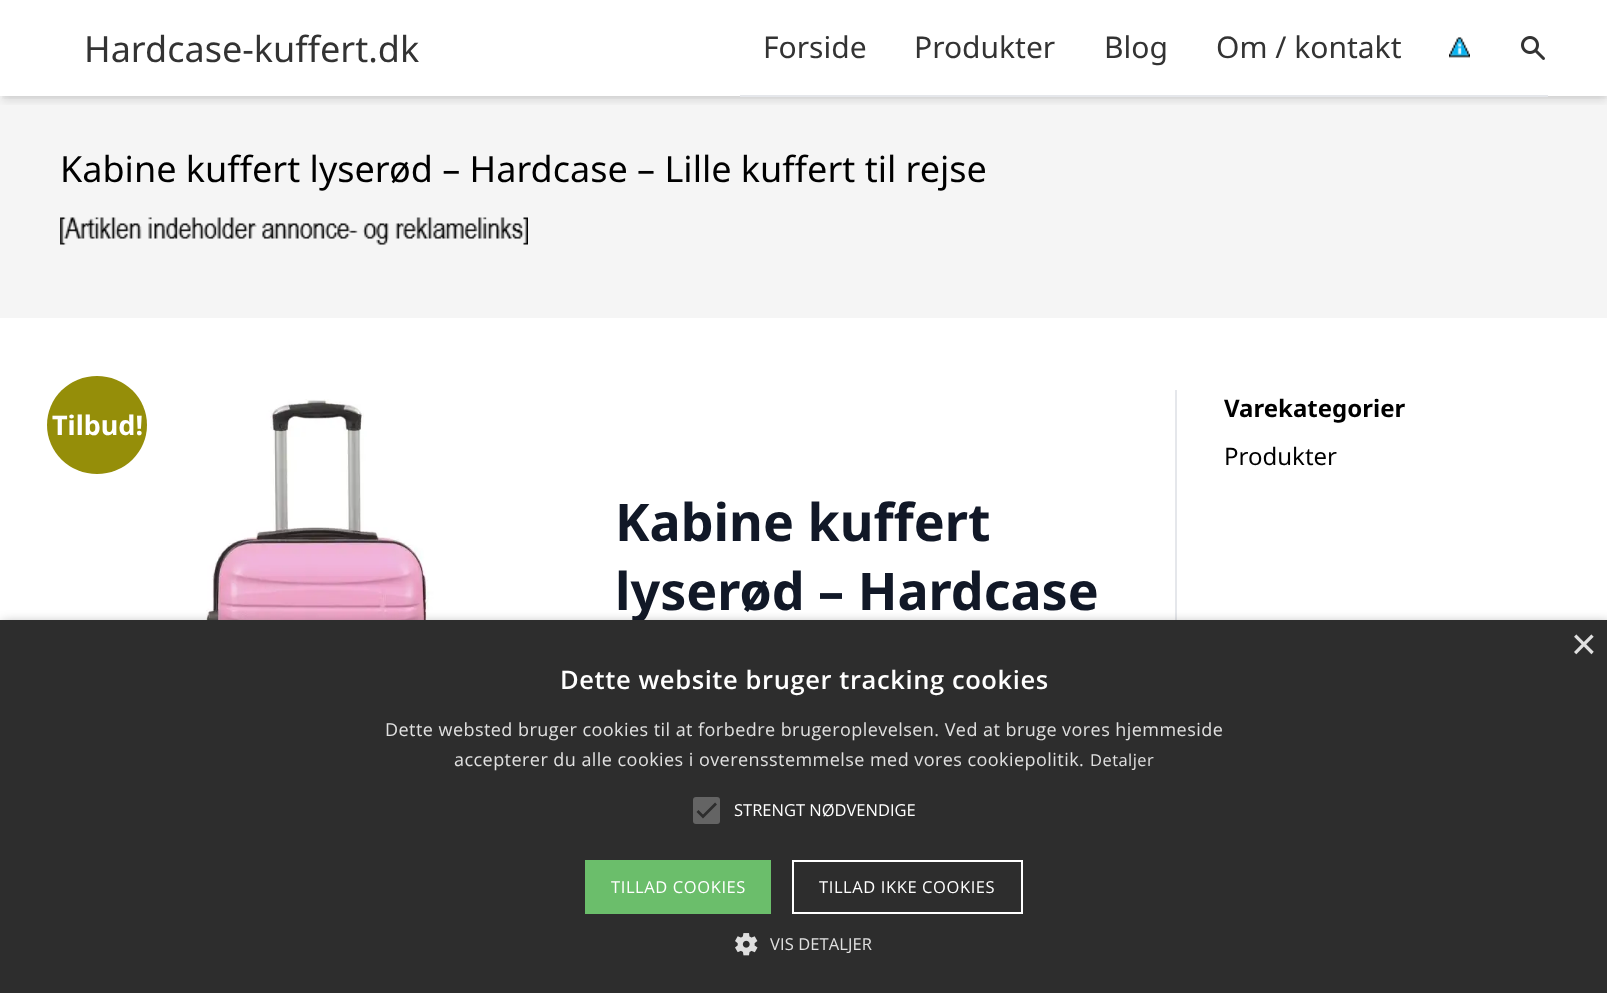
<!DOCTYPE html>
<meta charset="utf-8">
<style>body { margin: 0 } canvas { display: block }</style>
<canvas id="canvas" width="1607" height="993"></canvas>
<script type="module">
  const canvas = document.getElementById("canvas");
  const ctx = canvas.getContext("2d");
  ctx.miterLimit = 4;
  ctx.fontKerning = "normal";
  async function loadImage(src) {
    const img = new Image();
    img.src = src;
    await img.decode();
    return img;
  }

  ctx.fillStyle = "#ffffff";
  ctx.fillRect(0, 0, 1607, 993);
  ctx.fillStyle = "#f5f5f5";
  ctx.fillRect(0, 96, 1607, 222);
  ctx.save();
  ctx.beginPath();
  ctx.rect(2, 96, 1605, 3);
  ctx.clip();
  ctx.fillStyle = "rgba(0, 0, 0, 0.06)";
  ctx.filter = "blur(3px)";
  ctx.beginPath();
  ctx.rect(2, 5, 1605, 93);
  ctx.fill();
  ctx.filter = "none";
  ctx.restore();
  ctx.save();
  ctx.beginPath();
  ctx.rect(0, 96, 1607, 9);
  ctx.clip();
  ctx.fillStyle = "rgba(0, 0, 0, 0.1)";
  ctx.filter = "blur(4.5px)";
  ctx.beginPath();
  ctx.rect(2, 8, 1605, 93);
  ctx.fill();
  ctx.filter = "none";
  ctx.restore();
  ctx.font = "36px Noto Sans";
  ctx.fillStyle = "#333333";
  ctx.fillText("Hardcase-kuffert.dk", 84, 62);
  ctx.fillStyle = "#e5e7eb";
  ctx.fillRect(740, 95, 808, 2);
  ctx.font = "30px Noto Sans";
  ctx.fillStyle = "#333333";
  ctx.fillText("Forside", 763, 58);
  ctx.fillText("Produkter", 914, 58);
  ctx.fillText("Blog", 1104, 58);
  ctx.fillText("Om / kontakt", 1216, 58);
  ctx.drawImage(await loadImage("img1.png"), 1449, 37, 21, 21);
  ctx.drawImage(await loadImage("img2.png"), 1521, 36, 24, 24);
  ctx.font = "36px Noto Sans";
  ctx.fillStyle = "#000000";
  ctx.fillText("Kabine kuffert lyserød – Hardcase – Lille kuffert til rejse", 60, 182);
  ctx.drawImage(await loadImage("img3.png"), 60, 217, 468, 28);
  ctx.fillStyle = "#e5e7eb";
  ctx.fillRect(1175, 390, 2, 230);
  ctx.fillStyle = "#958e09";
  ctx.beginPath();
  ctx.ellipse(97, 425, 50, 49, 0, 0, Math.PI * 2);
  ctx.fill();
  ctx.font = "bold 27px Noto Sans";
  ctx.fillStyle = "#ffffff";
  ctx.fillText("Tilbud!", 52, 435);
  ctx.drawImage(await loadImage("img4.png"), 206, 399, 231, 221);
  ctx.font = "bold 52px Noto Sans";
  ctx.fillStyle = "#111827";
  ctx.fillText("Kabine kuffert", 615, 541);
  ctx.fillText("lyserød – Hardcase", 615, 610);
  ctx.font = "bold 24px Noto Sans";
  ctx.fillStyle = "#000000";
  ctx.fillText("Varekategorier", 1224, 417);
  ctx.font = "24px Noto Sans";
  ctx.fillText("Produkter", 1224, 465);
  ctx.fillStyle = "rgba(0, 0, 0, 0.35)";
  ctx.filter = "blur(6px)";
  ctx.beginPath();
  ctx.rect(2, 623, 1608, 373);
  ctx.fill();
  ctx.filter = "none";
  ctx.fillStyle = "#2d2d2d";
  ctx.fillRect(0, 620, 1607, 373);
  ctx.font = "44px Liberation Sans";
  ctx.fillStyle = "#e0e0e0";
  ctx.fillText("×", 1571, 659);
  ctx.letterSpacing = "0.6px";
  ctx.font = "600 25.5px Open Sans";
  ctx.fillStyle = "#ffffff";
  ctx.fillText("Dette website bruger tracking cookies", 560, 689);
  ctx.letterSpacing = "0.45px";
  ctx.font = "18px Open Sans";
  ctx.fillStyle = "#e0e0e0";
  ctx.fillText("Dette websted bruger cookies til at forbedre brugeroplevelsen. Ved at bruge vores hjemmeside", 385, 736);
  ctx.fillText("accepterer du alle cookies i overensstemmelse med vores cookiepolitik.", 454, 766);
  ctx.font = "16.5px Open Sans";
  ctx.fillText("Detaljer", 1090, 766);
  ctx.fillStyle = "#646464";
  ctx.beginPath();
  ctx.roundRect(693, 797, 27, 27, 3);
  ctx.fill();
  ctx.beginPath();
  ctx.moveTo(697.5, 811);
  ctx.lineTo(703, 816.5);
  ctx.lineTo(716, 803.5);
  ctx.strokeStyle = "#2d2d2d";
  ctx.lineWidth = 2.7;
  ctx.stroke();
  ctx.letterSpacing = "0px";
  ctx.fillStyle = "#ffffff";
  ctx.fillText("STRENGT NØDVENDIGE", 734, 816);
  ctx.fillStyle = "#6bbe6b";
  ctx.fillRect(585, 860, 186, 54);
  ctx.letterSpacing = "0.6px";
  ctx.fillStyle = "#ffffff";
  ctx.fillText("TILLAD COOKIES", 611, 893);
  ctx.strokeStyle = "#ffffff";
  ctx.lineWidth = 2;
  ctx.strokeRect(793, 861, 229, 52);
  ctx.fillText("TILLAD IKKE COOKIES", 819, 893);
  ctx.drawImage(await loadImage("img5.png"), 735, 933, 23, 23);
  ctx.letterSpacing = "0.1px";
  ctx.fillStyle = "#e0e0e0";
  ctx.fillText("VIS DETALJER", 770, 950);
</script>
